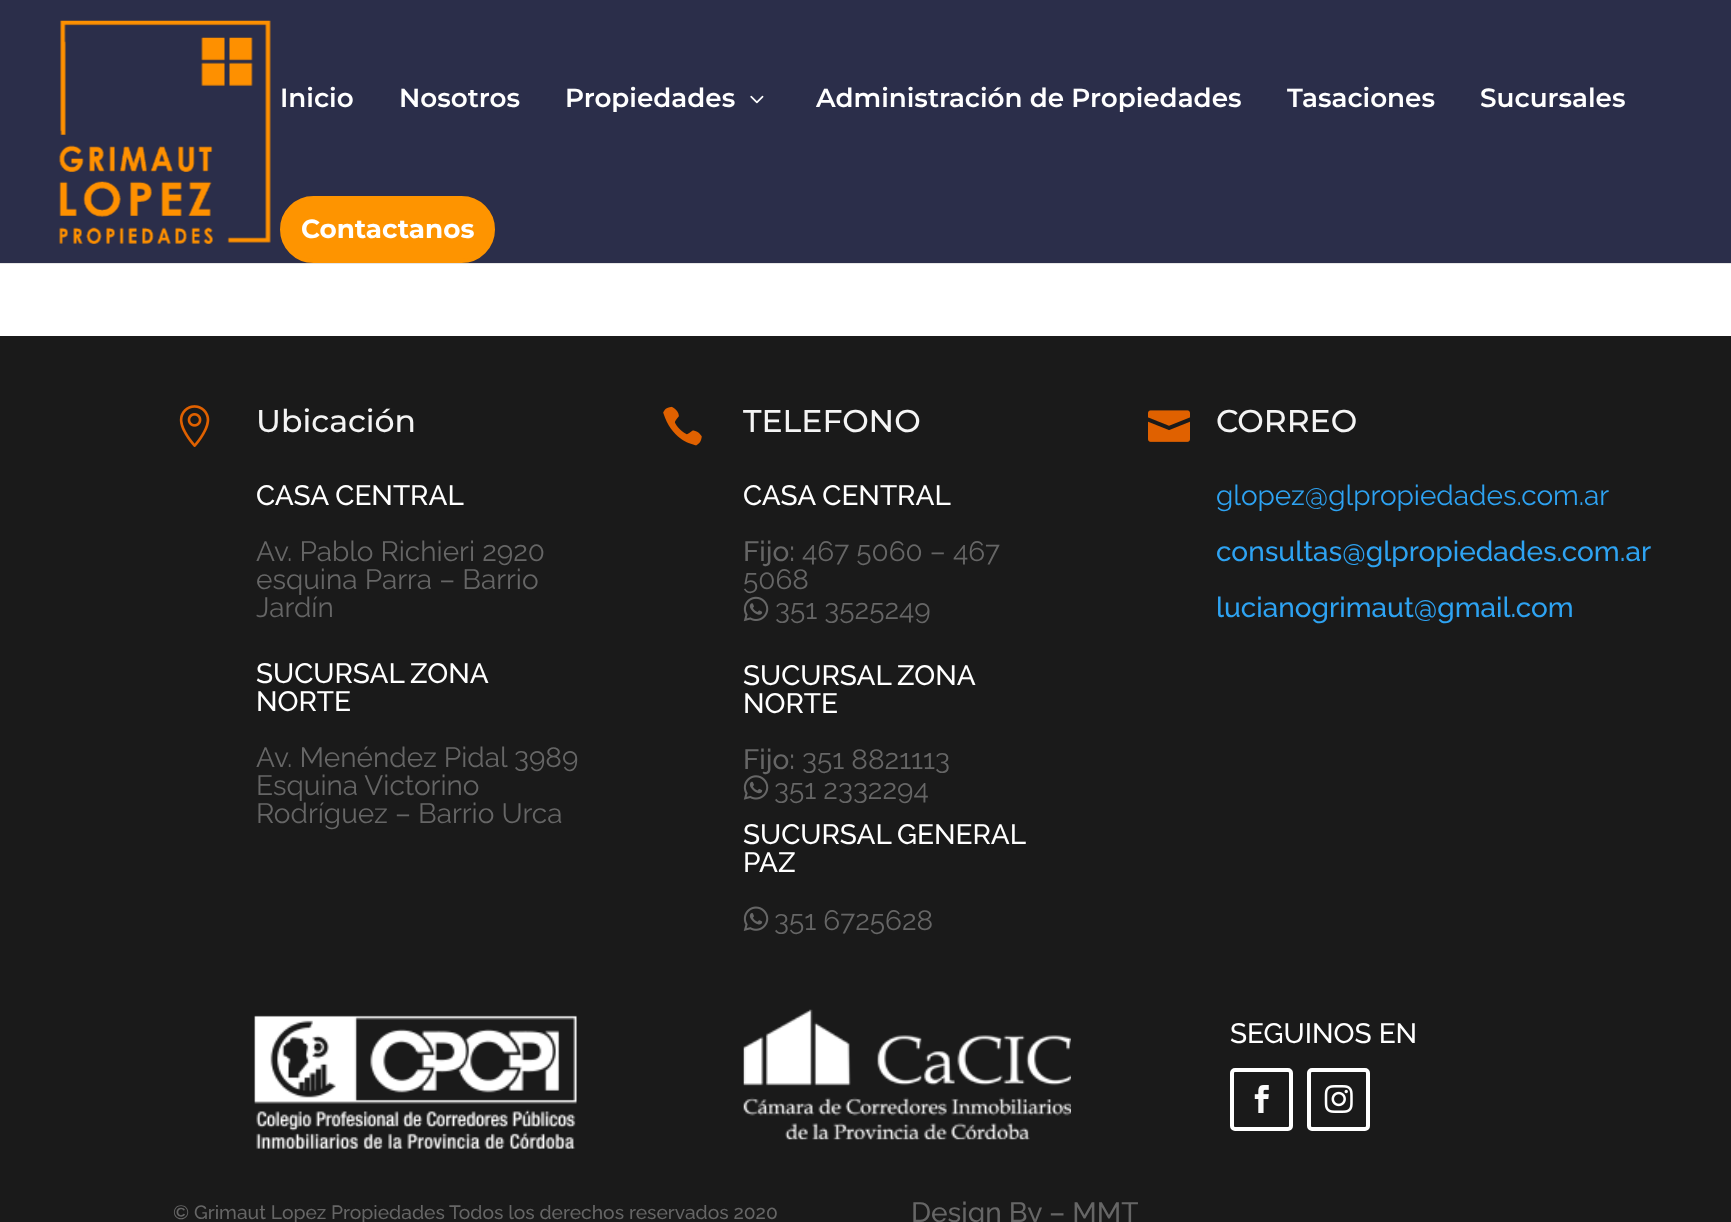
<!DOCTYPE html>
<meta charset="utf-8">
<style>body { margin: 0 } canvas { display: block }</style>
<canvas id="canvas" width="1731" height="1222"></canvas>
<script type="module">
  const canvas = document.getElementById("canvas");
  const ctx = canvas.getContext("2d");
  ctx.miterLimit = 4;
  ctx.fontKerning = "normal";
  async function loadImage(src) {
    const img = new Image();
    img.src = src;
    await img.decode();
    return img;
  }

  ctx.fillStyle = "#ffffff";
  ctx.fillRect(0, 0, 1731, 1222);
  ctx.fillStyle = "#e6e6e6";
  ctx.beginPath();
  ctx.moveTo(0, 262);
  ctx.lineTo(0, 264);
  ctx.lineTo(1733, 264);
  ctx.lineTo(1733, 2);
  ctx.lineTo(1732, 2);
  ctx.lineTo(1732, 262);
  ctx.closePath();
  ctx.fill();
  ctx.fillStyle = "#2b2e4a";
  ctx.fillRect(0, 0, 1731, 263);
  ctx.drawImage(await loadImage("img1.png"), 59, 20, 212, 224);
  ctx.font = "600 26.25px Montserrat";
  ctx.fillStyle = "#ffffff";
  ctx.fillText("Inicio", 280, 107);
  ctx.fillText("Nosotros", 399, 107);
  ctx.fillText("Propiedades", 565, 107);
  ctx.drawImage(await loadImage("img2.png"), 750, 95, 14, 9);
  ctx.fillText("Administración de Propiedades", 816, 107);
  ctx.fillText("Tasaciones", 1287, 107);
  ctx.fillText("Sucursales", 1480, 107);
  ctx.fillStyle = "#fe9400";
  ctx.beginPath();
  ctx.roundRect(282, 198, 211, 63, 31.5);
  ctx.fill();
  ctx.strokeStyle = "#fe9400";
  ctx.lineWidth = 4;
  ctx.stroke();
  ctx.font = "bold 26.25px Montserrat";
  ctx.fillStyle = "#ffffff";
  ctx.fillText("Contactanos", 301, 238);
  ctx.fillStyle = "#1a1a1a";
  ctx.fillRect(0, 336, 1731, 886);
  ctx.drawImage(await loadImage("img3.png"), 179, 405, 31, 42);
  ctx.font = "500 31.5px Montserrat";
  ctx.fillStyle = "#f4f4f4";
  ctx.fillText("Ubicación", 256, 432);
  ctx.font = "500 28px Raleway";
  ctx.fillStyle = "#ffffff";
  ctx.fillText("CASA CENTRAL", 256, 505);
  ctx.font = "28px Raleway";
  ctx.fillStyle = "#666666";
  ctx.fillText("Av. Pablo Richieri 2920", 256, 561);
  ctx.fillText("esquina Parra – Barrio", 256, 589);
  ctx.fillText("Jardín", 256, 617);
  ctx.wordSpacing = "-1px";
  ctx.font = "500 28px Raleway";
  ctx.fillStyle = "#ffffff";
  ctx.fillText("SUCURSAL ZONA", 256, 683);
  ctx.wordSpacing = "0px";
  ctx.fillText("NORTE", 256, 711);
  ctx.font = "28px Raleway";
  ctx.fillStyle = "#666666";
  ctx.fillText("Av. Menéndez Pidal 3989", 256, 767);
  ctx.fillText("Esquina Victorino", 256, 795);
  ctx.fillText("Rodríguez – Barrio Urca", 256, 823);
  ctx.drawImage(await loadImage("img4.png"), 663, 406, 39, 40);
  ctx.font = "500 31.5px Montserrat";
  ctx.fillStyle = "#f4f4f4";
  ctx.fillText("TELEFONO", 743, 432);
  ctx.font = "500 28px Raleway";
  ctx.fillStyle = "#ffffff";
  ctx.fillText("CASA CENTRAL", 743, 505);
  ctx.fillStyle = "#666666";
  ctx.fillText("Fijo:", 743, 561);
  ctx.font = "28px Raleway";
  ctx.fillText("467 5060 – 467", 802, 561);
  ctx.fillText("5068", 743, 589);
  ctx.drawImage(await loadImage("img5.png"), 743, 596, 26, 26);
  ctx.fillText("351 3525249", 775, 619);
  ctx.wordSpacing = "-1px";
  ctx.font = "500 28px Raleway";
  ctx.fillStyle = "#ffffff";
  ctx.fillText("SUCURSAL ZONA", 743, 685);
  ctx.wordSpacing = "0px";
  ctx.fillText("NORTE", 743, 713);
  ctx.fillStyle = "#666666";
  ctx.fillText("Fijo:", 743, 769);
  ctx.font = "28px Raleway";
  ctx.fillText("351 8821113", 802, 769);
  ctx.drawImage(await loadImage("img6.png"), 743, 775, 26, 25);
  ctx.fillText("351 2332294", 774, 799);
  ctx.wordSpacing = "-1px";
  ctx.font = "500 28px Raleway";
  ctx.fillStyle = "#ffffff";
  ctx.fillText("SUCURSAL GENERAL", 743, 844);
  ctx.wordSpacing = "0px";
  ctx.fillText("PAZ", 743, 872);
  ctx.drawImage(await loadImage("img7.png"), 743, 906, 26, 25);
  ctx.font = "28px Raleway";
  ctx.fillStyle = "#666666";
  ctx.fillText("351 6725628", 774, 930);
  ctx.drawImage(await loadImage("img8.png"), 1148, 410, 42, 32);
  ctx.font = "500 31.5px Montserrat";
  ctx.fillStyle = "#f4f4f4";
  ctx.fillText("CORREO", 1216, 432);
  ctx.font = "28px Raleway";
  ctx.fillStyle = "#2ea3f2";
  ctx.fillText("glopez@glpropiedades.com.ar", 1216, 505);
  ctx.font = "500 28px Raleway";
  ctx.fillText("consultas@glpropiedades.com.ar", 1216, 561);
  ctx.fillText("lucianogrimaut@gmail.com", 1216, 617);
  ctx.drawImage(await loadImage("img9.png"), 254, 1015, 323, 134);
  ctx.drawImage(await loadImage("img10.png"), 743, 1009, 328, 131);
  ctx.fillStyle = "#ffffff";
  ctx.fillText("SEGUINOS EN", 1230, 1043);
  ctx.beginPath();
  ctx.roundRect(1232, 1070, 59, 59, 3);
  ctx.strokeStyle = "#ffffff";
  ctx.stroke();
  ctx.drawImage(await loadImage("img11.png"), 1254, 1085, 15, 28);
  ctx.beginPath();
  ctx.roundRect(1309, 1070, 59, 59, 3);
  ctx.stroke();
  ctx.drawImage(await loadImage("img12.png"), 1324, 1085, 29, 28);
  ctx.font = "500 19.25px Raleway";
  ctx.fillStyle = "#666666";
  ctx.fillText("© Grimaut Lopez Propiedades Todos los derechos reservados 2020", 173, 1219);
  ctx.font = "500 28px Raleway";
  ctx.fillText("Design By – MMT", 911, 1222);
</script>
